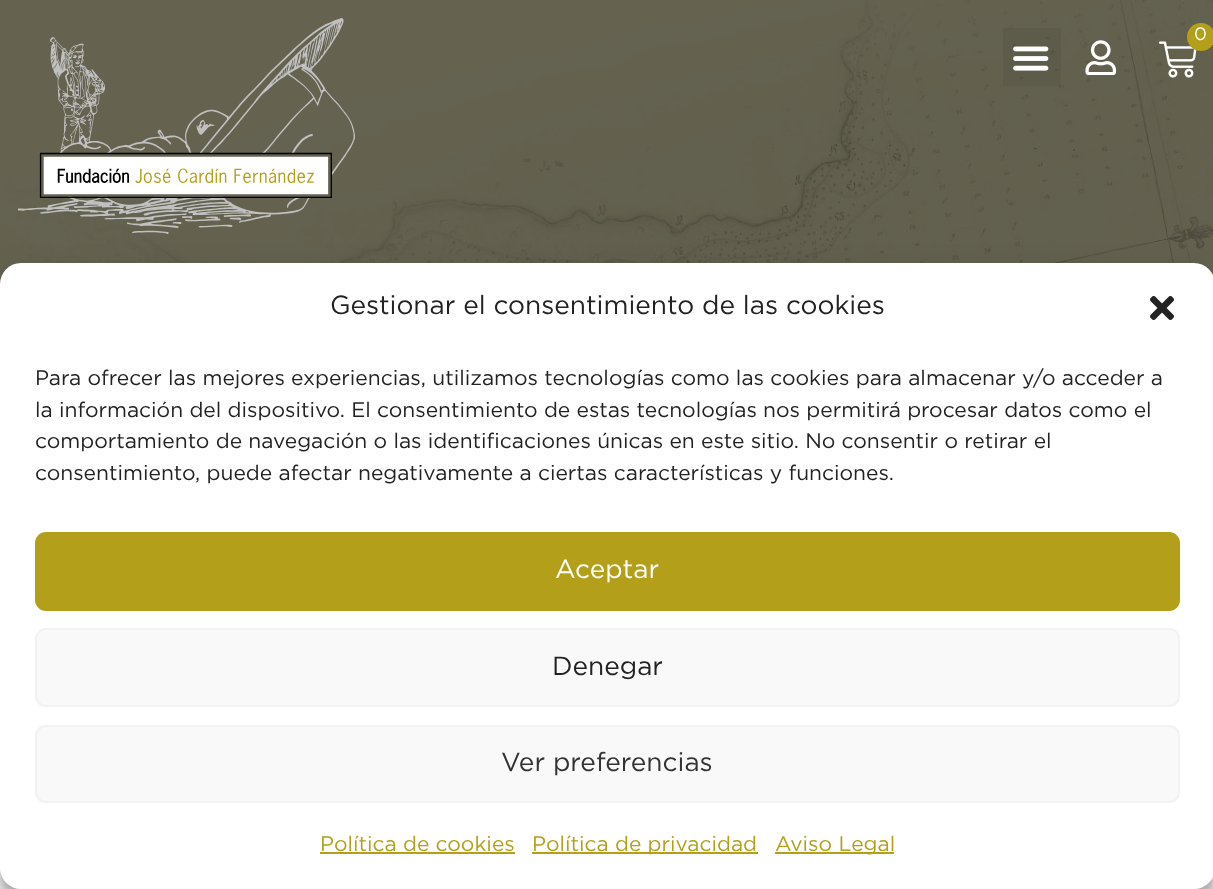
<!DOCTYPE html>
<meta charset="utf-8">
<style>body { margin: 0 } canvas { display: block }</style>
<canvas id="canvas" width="1213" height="889"></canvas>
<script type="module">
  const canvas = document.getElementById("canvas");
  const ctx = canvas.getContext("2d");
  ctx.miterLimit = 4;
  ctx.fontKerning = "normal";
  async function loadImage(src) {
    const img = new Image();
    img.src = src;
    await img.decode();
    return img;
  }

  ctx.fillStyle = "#ffffff";
  ctx.fillRect(0, 0, 1213, 889);
  ctx.drawImage(await loadImage("img1.png"), 0, 0, 1213, 284);
  ctx.drawImage(await loadImage("img2.png"), 18, 18, 337, 216);
  ctx.fillStyle = "rgba(0, 0, 0, 0.05)";
  ctx.fillRect(1003, 28, 58, 58);
  ctx.drawImage(await loadImage("img3.png"), 1013, 46, 36, 25);
  ctx.drawImage(await loadImage("img4.png"), 1085, 40, 32, 35);
  ctx.drawImage(await loadImage("img5.png"), 1159, 41, 38, 37);
  ctx.fillStyle = "#b39f19";
  ctx.beginPath();
  ctx.arc(1201, 37, 14, 0, Math.PI * 2);
  ctx.fill();
  ctx.font = "18px Gotham";
  ctx.fillStyle = "#ffffff";
  ctx.fillText("0", 1194, 40);
  ctx.fillStyle = "rgba(0, 0, 0, 0.23)";
  ctx.filter = "blur(5px)";
  ctx.beginPath();
  ctx.roundRect(0, 273, 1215, 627, 21);
  ctx.fill();
  ctx.filter = "none";
  ctx.fillStyle = "rgba(0, 0, 0, 0.19)";
  ctx.filter = "blur(17.5px)";
  ctx.beginPath();
  ctx.roundRect(0, 280, 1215, 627, 21);
  ctx.fill();
  ctx.filter = "none";
  ctx.fillStyle = "#ffffff";
  ctx.beginPath();
  ctx.roundRect(0, 263, 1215, 626, 21);
  ctx.fill();
  ctx.font = "26.25px Gotham";
  ctx.fillStyle = "#222222";
  ctx.fillText("Gestionar el consentimiento de las cookies", 330, 314);
  ctx.drawImage(await loadImage("img6.png"), 1150, 296, 24, 24);
  ctx.font = "21px Gotham";
  ctx.fillText("Para ofrecer las mejores experiencias, utilizamos tecnologías como las cookies para almacenar y/o acceder a", 35, 385);
  ctx.fillText("la información del dispositivo. El consentimiento de estas tecnologías nos permitirá procesar datos como el", 35, 417);
  ctx.fillText("comportamiento de navegación o las identificaciones únicas en este sitio. No consentir o retirar el", 35, 448);
  ctx.fillText("consentimiento, puede afectar negativamente a ciertas características y funciones.", 35, 480);
  ctx.fillStyle = "#b39f19";
  ctx.beginPath();
  ctx.roundRect(36, 533, 1143, 77, 10);
  ctx.fill();
  ctx.strokeStyle = "#b39f19";
  ctx.lineWidth = 2;
  ctx.stroke();
  ctx.font = "26.25px Gotham";
  ctx.fillStyle = "#ffffff";
  ctx.fillText("Aceptar", 555, 578);
  ctx.fillStyle = "#f9f9f9";
  ctx.beginPath();
  ctx.roundRect(36, 629, 1143, 77, 10);
  ctx.fill();
  ctx.strokeStyle = "#f2f2f2";
  ctx.stroke();
  ctx.fillStyle = "#222222";
  ctx.fillText("Denegar", 552, 675);
  ctx.fillStyle = "#f9f9f9";
  ctx.beginPath();
  ctx.roundRect(36, 726, 1143, 76, 10);
  ctx.fill();
  ctx.stroke();
  ctx.fillStyle = "#333333";
  ctx.fillText("Ver preferencias", 501, 771);
  ctx.font = "21px Gotham";
  ctx.fillStyle = "#b39f19";
  ctx.fillText("Política de cookies", 320, 851);
  ctx.fillRect(320, 852, 195, 2);
  ctx.fillRect(532, 852, 226, 2);
  ctx.fillText("Política de privacidad", 532, 851);
  ctx.fillRect(775, 852, 119, 2);
  ctx.fillText("Aviso Legal", 775, 851);
</script>
